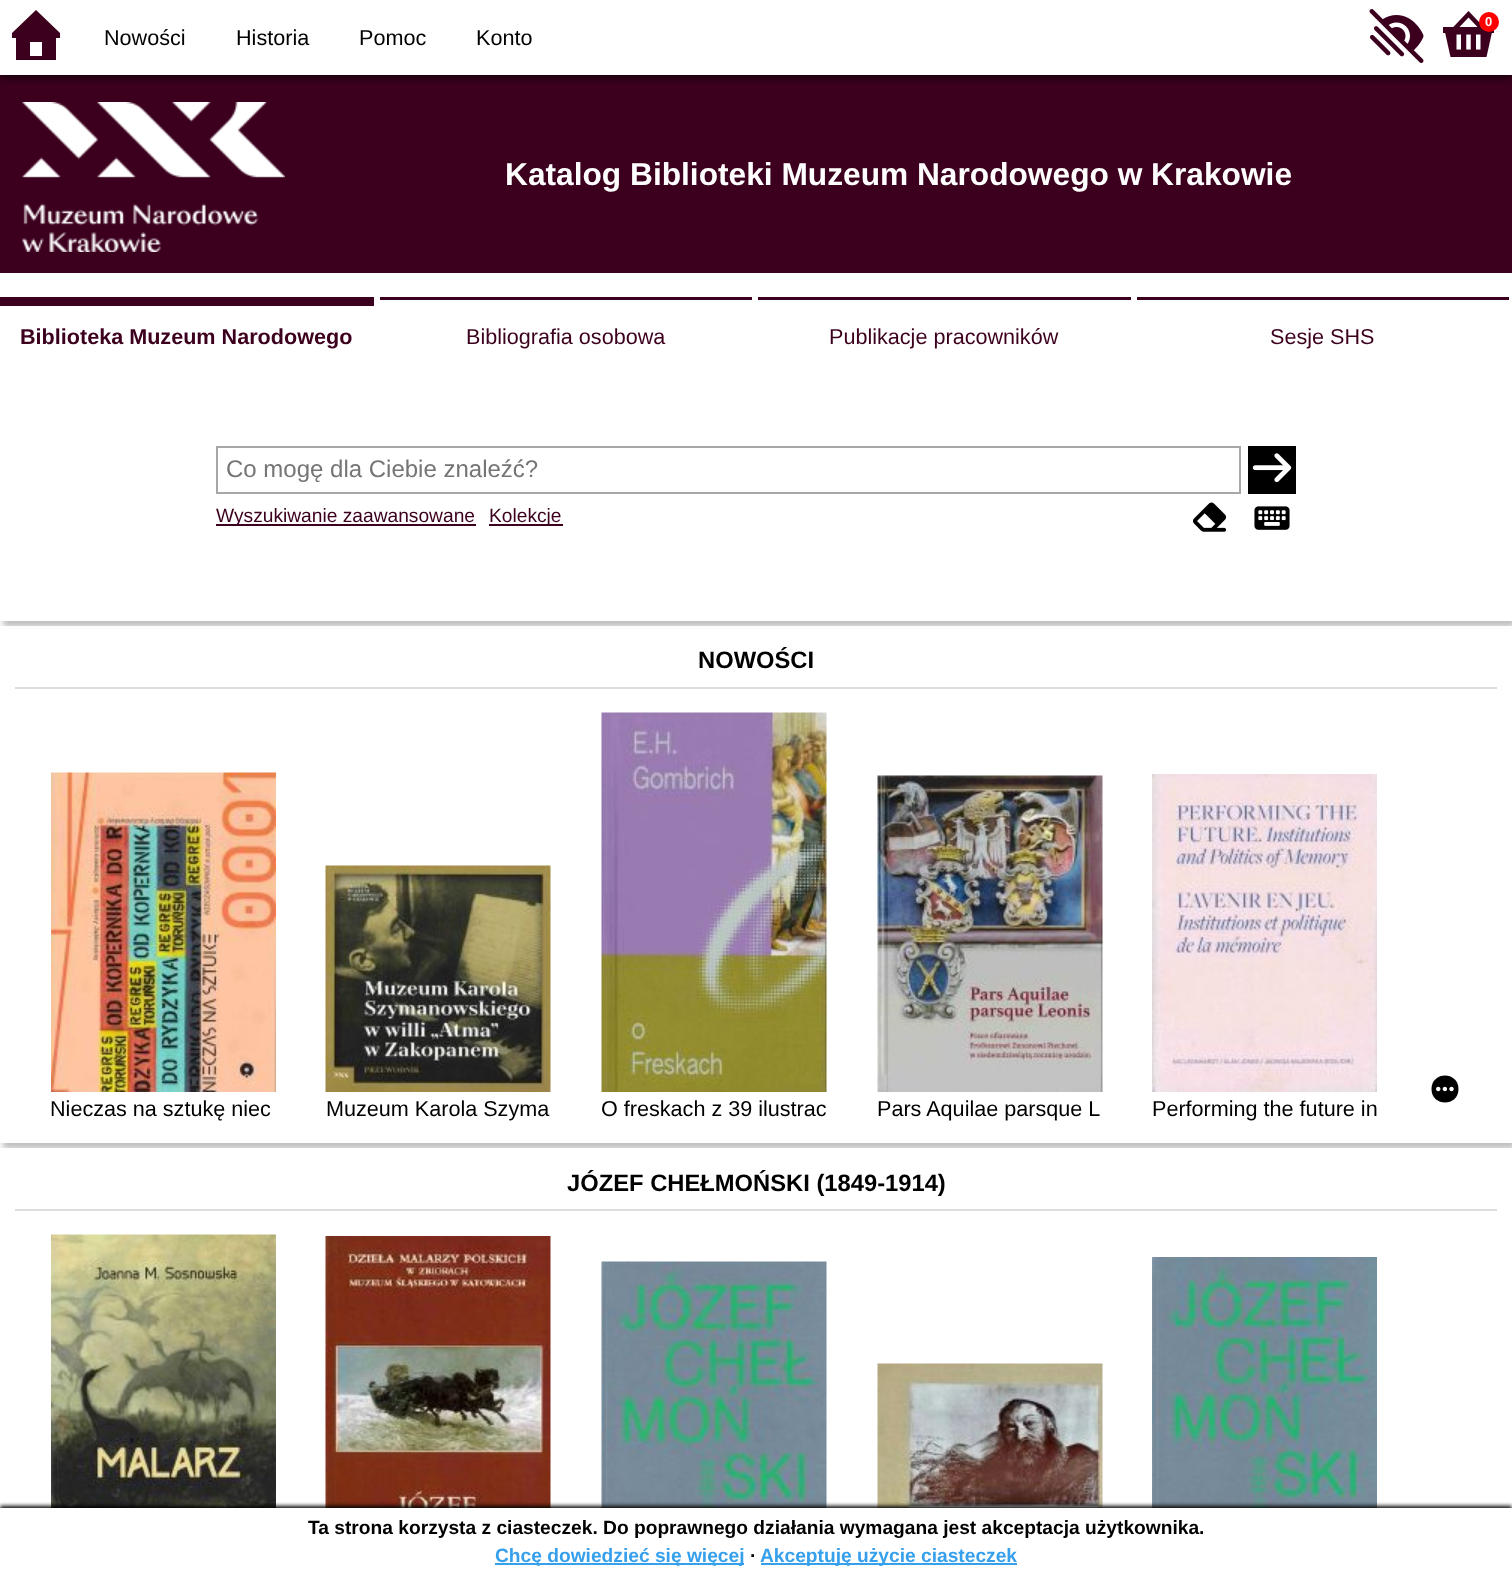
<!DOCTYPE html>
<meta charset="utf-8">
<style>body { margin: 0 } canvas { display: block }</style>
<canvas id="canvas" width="1512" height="1580"></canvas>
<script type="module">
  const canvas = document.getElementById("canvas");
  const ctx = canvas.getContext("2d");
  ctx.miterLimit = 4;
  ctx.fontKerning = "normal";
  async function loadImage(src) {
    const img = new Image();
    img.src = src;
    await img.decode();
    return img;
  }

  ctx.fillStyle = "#ffffff";
  ctx.fillRect(0, 0, 1512, 1580);
  ctx.fillStyle = "#3c001e";
  ctx.fillRect(0, 75, 1512, 198);
  ctx.save();
  ctx.beginPath();
  ctx.rect(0, 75, 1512, 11);
  ctx.clip();
  ctx.fillStyle = "rgba(0, 0, 0, 0.65)";
  ctx.filter = "blur(4.5px)";
  ctx.beginPath();
  ctx.rect(0, 3, 1512, 75);
  ctx.fill();
  ctx.filter = "none";
  ctx.restore();
  ctx.drawImage(await loadImage("img1.png"), 1369, 9, 55, 54);
  ctx.drawImage(await loadImage("img2.png"), 1443, 11, 51, 46);
  ctx.fillStyle = "#ff0000";
  ctx.beginPath();
  ctx.arc(1489, 22, 10, 0, Math.PI * 2);
  ctx.fill();
  ctx.font = "bold 13px Liberation Sans";
  ctx.fillStyle = "#ffffff";
  ctx.fillText("0", 1485, 26);
  ctx.fillStyle = "#3c001e";
  ctx.beginPath();
  ctx.moveTo(60, 38);
  ctx.lineTo(56, 38);
  ctx.lineTo(56, 60);
  ctx.lineTo(16, 60);
  ctx.lineTo(16, 38);
  ctx.lineTo(12, 38);
  ctx.lineTo(12, 33);
  ctx.lineTo(36, 10);
  ctx.lineTo(60, 33);
  ctx.closePath();
  ctx.moveTo(42, 56);
  ctx.lineTo(42, 42);
  ctx.lineTo(30, 42);
  ctx.lineTo(30, 56);
  ctx.closePath();
  ctx.fill();
  ctx.font = "21.6px Liberation Sans";
  ctx.fillStyle = "#000000";
  ctx.fillText("Nowości", 104, 45);
  ctx.fillText("Historia", 236, 45);
  ctx.fillText("Pomoc", 359, 45);
  ctx.fillText("Konto", 476, 45);
  ctx.drawImage(await loadImage("img3.png"), 22, 102, 263, 150);
  ctx.font = "bold 31.7px Liberation Sans";
  ctx.fillStyle = "#ffffff";
  ctx.fillText("Katalog Biblioteki Muzeum Narodowego w Krakowie", 505, 185);
  ctx.save();
  ctx.beginPath();
  ctx.rect(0, 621, 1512, 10);
  ctx.clip();
  ctx.fillStyle = "rgba(0, 0, 0, 0.25)";
  ctx.filter = "blur(3px)";
  ctx.beginPath();
  ctx.rect(3, 303, 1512, 324);
  ctx.fill();
  ctx.filter = "none";
  ctx.restore();
  ctx.fillStyle = "#3c001e";
  ctx.fillRect(0, 297, 374, 9);
  ctx.font = "bold 21.6px Liberation Sans";
  ctx.fillText("Biblioteka Muzeum Narodowego", 20, 344);
  ctx.fillRect(380, 297, 372, 3);
  ctx.font = "21.6px Liberation Sans";
  ctx.fillText("Bibliografia osobowa", 466, 344);
  ctx.fillRect(758, 297, 373, 3);
  ctx.fillText("Publikacje pracowników", 829, 344);
  ctx.fillRect(1137, 297, 372, 3);
  ctx.fillText("Sesje SHS", 1270, 344);
  ctx.strokeStyle = "#a7a7a7";
  ctx.lineWidth = 2;
  ctx.strokeRect(217, 447, 1023, 46);
  ctx.font = "24px Liberation Sans";
  ctx.fillStyle = "#757575";
  ctx.fillText("Co mogę dla Ciebie znaleźć?", 226, 477);
  ctx.fillStyle = "#000000";
  ctx.fillRect(1248, 446, 48, 48);
  ctx.drawImage(await loadImage("img4.png"), 1252, 453, 40, 30);
  ctx.fillStyle = "#3c001e";
  ctx.fillRect(216, 524, 260, 2);
  ctx.font = "19.2px Liberation Sans";
  ctx.fillText("Wyszukiwanie zaawansowane", 216, 522);
  ctx.fillRect(489, 524, 74, 2);
  ctx.fillText("Kolekcje", 489, 522);
  ctx.drawImage(await loadImage("img5.png"), 1193, 502, 34, 30);
  ctx.drawImage(await loadImage("img6.png"), 1254, 506, 36, 24);
  ctx.save();
  ctx.beginPath();
  ctx.rect(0, 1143, 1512, 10);
  ctx.clip();
  ctx.fillStyle = "rgba(0, 0, 0, 0.25)";
  ctx.filter = "blur(3px)";
  ctx.beginPath();
  ctx.rect(3, 632, 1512, 517);
  ctx.fill();
  ctx.filter = "none";
  ctx.restore();
  ctx.fillStyle = "rgba(255, 255, 255, 0.95)";
  ctx.fillRect(0, 626, 1512, 6);
  ctx.fillStyle = "#dddddd";
  ctx.fillRect(15, 687, 1482, 2);
  ctx.font = "bold 23.75px Liberation Sans";
  ctx.fillStyle = "#000000";
  ctx.fillText("NOWOŚCI", 698, 668);
  ctx.beginPath();
  ctx.moveTo(1431.5, 1089);
  ctx.bezierCurveTo(1431.5, 1071, 1458.5, 1071, 1458.5, 1089);
  ctx.bezierCurveTo(1458.5, 1107, 1431.5, 1107, 1431.5, 1089);
  ctx.closePath();
  ctx.fill();
  ctx.drawImage(await loadImage("img7.png"), 1436, 1086, 18, 6);
  ctx.drawImage(await loadImage("img8.png"), 51, 772, 225, 320);
  ctx.font = "21.6px Liberation Sans";
  ctx.fillText("Nieczas na sztukę niec", 50, 1116);
  ctx.drawImage(await loadImage("img9.png"), 325, 865, 226, 227);
  ctx.fillText("Muzeum Karola Szyma", 326, 1116);
  ctx.drawImage(await loadImage("img10.png"), 601, 712, 226, 380);
  ctx.fillText("O freskach z 39 ilustrac", 601, 1116);
  ctx.drawImage(await loadImage("img11.png"), 877, 775, 226, 317);
  ctx.fillText("Pars Aquilae parsque L", 877, 1116);
  ctx.drawImage(await loadImage("img12.png"), 1152, 774, 225, 318);
  ctx.fillText("Performing the future in", 1152, 1116);
  ctx.fillStyle = "rgba(255, 255, 255, 0.95)";
  ctx.fillRect(0, 1148, 1512, 6);
  ctx.fillStyle = "#dddddd";
  ctx.fillRect(15, 1209, 1482, 2);
  ctx.font = "bold 23.75px Liberation Sans";
  ctx.fillStyle = "#000000";
  ctx.fillText("JÓZEF CHEŁMOŃSKI (1849-1914)", 567, 1191);
  ctx.drawImage(await loadImage("img13.png"), 51, 1234, 225, 274);
  ctx.drawImage(await loadImage("img14.png"), 325, 1236, 226, 272);
  ctx.drawImage(await loadImage("img15.png"), 601, 1261, 226, 247);
  ctx.drawImage(await loadImage("img16.png"), 877, 1363, 226, 145);
  ctx.drawImage(await loadImage("img17.png"), 1152, 1257, 225, 251);
  ctx.filter = "blur(2px)";
  ctx.beginPath();
  ctx.rect(0, 1506, 1512, 74);
  ctx.fill();
  ctx.filter = "none";
  ctx.fillStyle = "#ffffff";
  ctx.fillRect(0, 1508, 1512, 72);
  ctx.font = "bold 19.2px Liberation Sans";
  ctx.fillStyle = "#000000";
  ctx.fillText("Ta strona korzysta z ciasteczek. Do poprawnego działania wymagana jest akceptacja użytkownika.", 308, 1534);
  ctx.fillStyle = "#36a0ec";
  ctx.fillRect(495, 1563, 249, 2);
  ctx.fillText("Chcę dowiedzieć się więcej", 495, 1562);
  ctx.fillStyle = "#000000";
  ctx.fillText("∙", 750, 1562);
  ctx.fillStyle = "#36a0ec";
  ctx.fillRect(761, 1563, 256, 2);
  ctx.fillText("Akceptuję użycie ciasteczek", 760, 1562);
</script>
